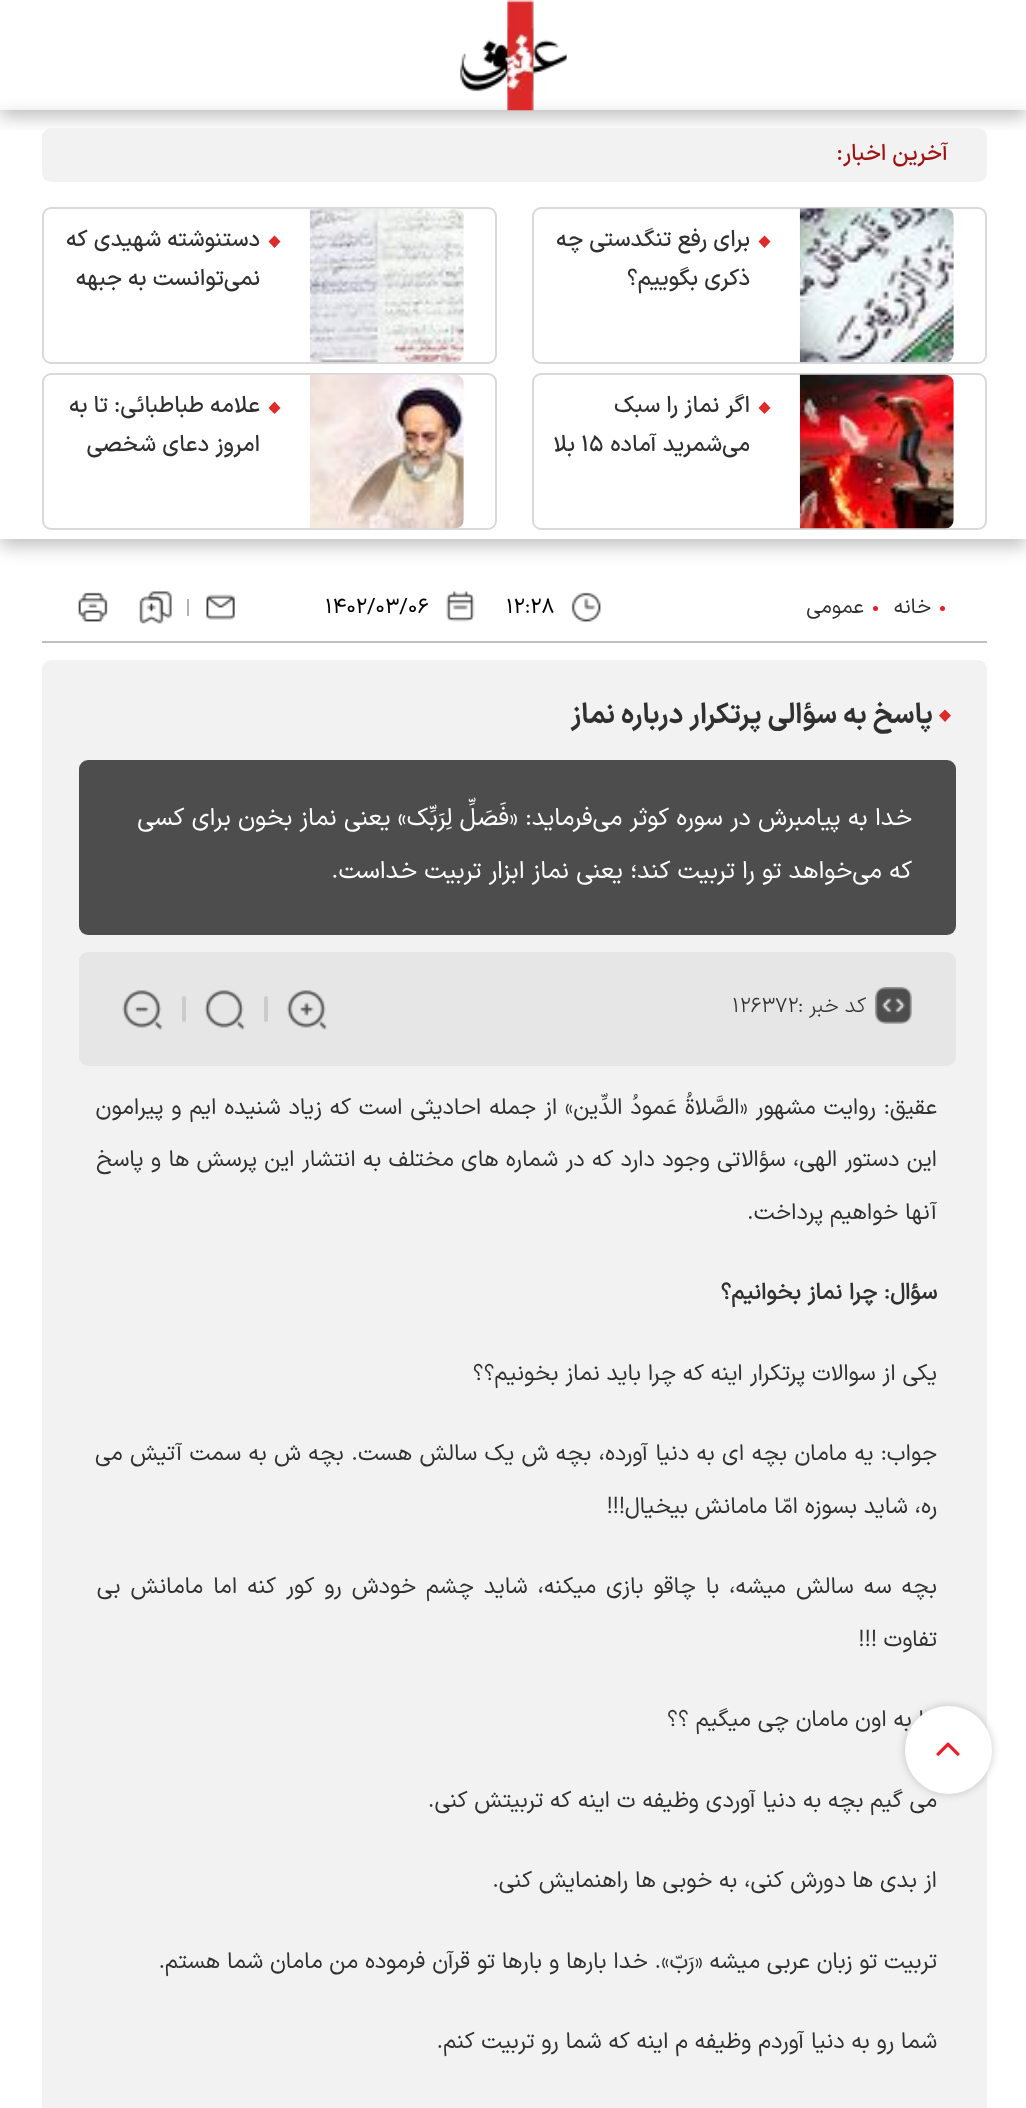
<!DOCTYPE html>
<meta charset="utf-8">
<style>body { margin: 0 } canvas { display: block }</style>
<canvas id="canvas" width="1026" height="2108"></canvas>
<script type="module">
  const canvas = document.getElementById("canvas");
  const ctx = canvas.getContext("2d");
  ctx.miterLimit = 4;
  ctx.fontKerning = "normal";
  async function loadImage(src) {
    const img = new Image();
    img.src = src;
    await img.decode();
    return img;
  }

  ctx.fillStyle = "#ffffff";
  ctx.fillRect(0, 0, 1026, 2108);
  ctx.save();
  ctx.beginPath();
  ctx.rect(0, 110, 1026, 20);
  ctx.clip();
  ctx.fillStyle = "rgba(0, 0, 0, 0.25)";
  ctx.filter = "blur(9px)";
  ctx.beginPath();
  ctx.rect(0, 7, 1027, 110);
  ctx.fill();
  ctx.filter = "none";
  ctx.restore();
  ctx.save();
  ctx.beginPath();
  ctx.moveTo(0, 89);
  ctx.lineTo(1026, 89);
  ctx.lineTo(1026, 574);
  ctx.lineTo(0, 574);
  ctx.closePath();
  ctx.moveTo(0, 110);
  ctx.lineTo(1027, 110);
  ctx.lineTo(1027, 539);
  ctx.lineTo(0, 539);
  ctx.closePath();
  ctx.clip("evenodd");
  ctx.fillStyle = "rgba(0, 0, 0, 0.25)";
  ctx.filter = "blur(9px)";
  ctx.beginPath();
  ctx.rect(0, 117, 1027, 429);
  ctx.fill();
  ctx.filter = "none";
  ctx.restore();
  ctx.drawImage(await loadImage("img1.png"), 460, 0, 107, 111);
  ctx.fillStyle = "#f2f2f2";
  ctx.beginPath();
  ctx.roundRect(42, 128, 945, 54, 9);
  ctx.fill();
  ctx.direction = "rtl";
  ctx.font = "500 22.75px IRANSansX";
  ctx.fillStyle = "#a01313";
  ctx.fillText("آخرین اخبار:", 948, 160);
  ctx.beginPath();
  ctx.roundRect(533, 208, 453, 155, 8);
  ctx.strokeStyle = "#d9d9d9";
  ctx.lineWidth = 2;
  ctx.stroke();
  ctx.drawImage(await loadImage("img2.png"), 799, 208, 155, 155);
  ctx.fillStyle = "#de2a29";
  ctx.beginPath();
  ctx.moveTo(764.5, 235.5);
  ctx.lineTo(770.5, 241.5);
  ctx.lineTo(764.5, 248);
  ctx.lineTo(758.5, 241.5);
  ctx.closePath();
  ctx.fill();
  ctx.fillStyle = "#303030";
  ctx.fillText("برای رفع تنگدستی چه", 750, 246);
  ctx.fillText("ذکری بگوییم؟", 750, 285);
  ctx.beginPath();
  ctx.roundRect(43, 208, 453, 155, 8);
  ctx.stroke();
  ctx.drawImage(await loadImage("img3.png"), 309, 208, 155, 154);
  ctx.fillStyle = "#de2a29";
  ctx.beginPath();
  ctx.moveTo(274.5, 235.5);
  ctx.lineTo(280.5, 241.5);
  ctx.lineTo(274.5, 248);
  ctx.lineTo(268.5, 241.5);
  ctx.closePath();
  ctx.fill();
  ctx.fillStyle = "#303030";
  ctx.fillText("دستنوشته شهیدی که", 260, 246);
  ctx.fillText("نمی‌توانست به جبهه", 260, 285);
  ctx.beginPath();
  ctx.roundRect(533, 374, 453, 155, 8);
  ctx.stroke();
  ctx.drawImage(await loadImage("img4.png"), 799, 374, 155, 155);
  ctx.fillStyle = "#de2a29";
  ctx.beginPath();
  ctx.moveTo(764.5, 401.5);
  ctx.lineTo(770.5, 408);
  ctx.lineTo(764.5, 414);
  ctx.lineTo(758.5, 408);
  ctx.closePath();
  ctx.fill();
  ctx.fillStyle = "#303030";
  ctx.fillText("اگر نماز را سبک", 750, 412);
  ctx.fillText("می‌شمرید آماده", 750, 451);
  ctx.direction = "ltr";
  ctx.fillText("۱۵", 581, 451);
  ctx.direction = "rtl";
  ctx.fillText("بلا", 575, 451);
  ctx.beginPath();
  ctx.roundRect(43, 374, 453, 155, 8);
  ctx.stroke();
  ctx.drawImage(await loadImage("img5.png"), 310, 374, 154, 155);
  ctx.fillStyle = "#de2a29";
  ctx.beginPath();
  ctx.moveTo(274.5, 401.5);
  ctx.lineTo(280.5, 408);
  ctx.lineTo(274.5, 414);
  ctx.lineTo(268.5, 408);
  ctx.closePath();
  ctx.fill();
  ctx.fillStyle = "#303030";
  ctx.fillText("علامه طباطبائی: تا به", 260, 412);
  ctx.fillText("امروز دعای شخصی", 260, 451);
  ctx.fillStyle = "#f2f2f2";
  ctx.beginPath();
  ctx.roundRect(42, 660, 945, 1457, 9);
  ctx.fill();
  ctx.fillStyle = "rgba(0, 0, 0, 0.2)";
  ctx.filter = "blur(4.5px)";
  ctx.beginPath();
  ctx.roundRect(905, 1706, 87, 88, 43.5);
  ctx.fill();
  ctx.filter = "none";
  ctx.font = "22.75px IRANSansX";
  ctx.fillStyle = "#303030";
  ctx.fillText("ما به اون مامان چی میگیم ؟؟", 937, 1726);
  ctx.fillText("می گیم بچه به دنیا آوردی وظیفه ت اینه که تربیتش کنی.", 937, 1807);
  ctx.fillStyle = "#ffffff";
  ctx.beginPath();
  ctx.roundRect(905, 1706, 87, 88, 43.5);
  ctx.fill();
  ctx.drawImage(await loadImage("img6.png"), 936, 1742, 24, 14);
  ctx.fillStyle = "#bfbfbf";
  ctx.fillRect(42, 641, 945, 2);
  ctx.fillStyle = "#ed1c24";
  ctx.beginPath();
  ctx.arc(942.5, 608.5, 2.5, 0, Math.PI * 2);
  ctx.fill();
  ctx.font = "21px IRANSansX";
  ctx.fillStyle = "#303030";
  ctx.fillText("خانه", 931, 613);
  ctx.fillStyle = "#ed1c24";
  ctx.beginPath();
  ctx.arc(875.5, 608.5, 2.5, 0, Math.PI * 2);
  ctx.fill();
  ctx.fillStyle = "#303030";
  ctx.fillText("عمومی", 864, 613);
  ctx.drawImage(await loadImage("img7.png"), 571, 592, 30, 30);
  ctx.direction = "ltr";
  ctx.fillStyle = "#000000";
  ctx.fillText("۱۲:۲۸", 506, 613);
  ctx.drawImage(await loadImage("img8.png"), 446, 591, 29, 31);
  ctx.fillText("۱۴۰۲/۰۳/۰۶", 325, 613);
  ctx.drawImage(await loadImage("img9.png"), 206, 594, 29, 26);
  ctx.fillStyle = "#b3b3b3";
  ctx.fillRect(187, 599, 2, 17);
  ctx.drawImage(await loadImage("img10.png"), 139, 591, 33, 33);
  ctx.drawImage(await loadImage("img11.png"), 78, 592, 30, 30);
  ctx.fillStyle = "#de2a29";
  ctx.beginPath();
  ctx.moveTo(945, 709.5);
  ctx.lineTo(951, 715.5);
  ctx.lineTo(945, 722);
  ctx.lineTo(939, 715.5);
  ctx.closePath();
  ctx.fill();
  ctx.direction = "rtl";
  ctx.font = "bold 28px 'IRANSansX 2'";
  ctx.fillStyle = "#303030";
  ctx.fillText("پاسخ به سؤالی پرتکرار درباره نماز", 933, 723);
  ctx.fillStyle = "#4d4d4d";
  ctx.beginPath();
  ctx.roundRect(79, 760, 877, 175, 9);
  ctx.fill();
  ctx.font = "24.5px IRANSansX";
  ctx.fillStyle = "#ffffff";
  ctx.fillText("خدا به پیامبرش در سوره کوثر می‌فرماید: «فَصَلِّ لِرَبِّک» یعنی نماز بخون برای کسی", 912, 825);
  ctx.fillText("که می‌خواهد تو را تربیت کند؛ یعنی نماز ابزار تربیت خداست.", 912, 878);
  ctx.fillStyle = "#e6e6e6";
  ctx.beginPath();
  ctx.roundRect(79, 952, 877, 114, 9);
  ctx.fill();
  ctx.drawImage(await loadImage("img12.png"), 875, 987, 37, 37);
  ctx.font = "300 21px IRANSansX";
  ctx.fillStyle = "#303030";
  ctx.fillText("کد خبر", 866, 1012);
  ctx.direction = "ltr";
  ctx.fillText(":", 798, 1012);
  ctx.fillText("۱۲۶۳۷۲", 732, 1012);
  ctx.drawImage(await loadImage("img13.png"), 286, 990, 42, 40);
  ctx.fillStyle = "#cccccc";
  ctx.beginPath();
  ctx.roundRect(264, 996, 4, 26, 2);
  ctx.fill();
  ctx.drawImage(await loadImage("img14.png"), 204, 990, 42, 40);
  ctx.beginPath();
  ctx.roundRect(182, 996, 4, 26, 2);
  ctx.fill();
  ctx.drawImage(await loadImage("img15.png"), 122, 990, 41, 40);
  ctx.wordSpacing = "1.1px";
  ctx.direction = "rtl";
  ctx.font = "22.75px IRANSansX";
  ctx.fillStyle = "#303030";
  ctx.fillText("عقیق: روایت مشهور «الصَّلاةُ عَمودُ الدِّین» از جمله احادیثی است که زیاد شنیده ایم و پیرامون", 937, 1114);
  ctx.wordSpacing = "0.5px";
  ctx.fillText("این دستور الهی، سؤالاتی وجود دارد که در شماره های مختلف به انتشار این پرسش ها و پاسخ", 937, 1166);
  ctx.wordSpacing = "0px";
  ctx.fillText("آنها خواهیم پرداخت.", 937, 1219);
  ctx.font = "bold 22.75px IRANSansX";
  ctx.fillText("سؤال: چرا نماز بخوانیم؟", 937, 1299);
  ctx.font = "22.75px IRANSansX";
  ctx.fillText("یکی از سوالات پرتکرار اینه که چرا باید نماز بخونیم؟؟", 937, 1380);
  ctx.wordSpacing = "0.6px";
  ctx.fillText("جواب: یه مامان بچه ای به دنیا آورده، بچه ش یک سالش هست. بچه ش به سمت آتیش می", 937, 1460);
  ctx.wordSpacing = "0px";
  ctx.fillText("ره، شاید بسوزه امّا مامانش بیخیال!!!", 937, 1513);
  ctx.wordSpacing = "3.25px";
  ctx.fillText("بچه سه سالش میشه، با چاقو بازی میکنه، شاید چشم خودش رو کور کنه اما مامانش بی", 937, 1593);
  ctx.wordSpacing = "0px";
  ctx.fillText("تفاوت !!!", 937, 1646);
  ctx.fillText("از بدی ها دورش کنی، به خوبی ها راهنمایش کنی.", 937, 1887);
  ctx.fillText("تربیت تو زبان عربی میشه «رَبّ». خدا بارها و بارها تو قرآن فرموده من مامان شما هستم.", 937, 1968);
  ctx.fillText("شما رو به دنیا آوردم وظیفه م اینه که شما رو تربیت کنم.", 937, 2048);
</script>
